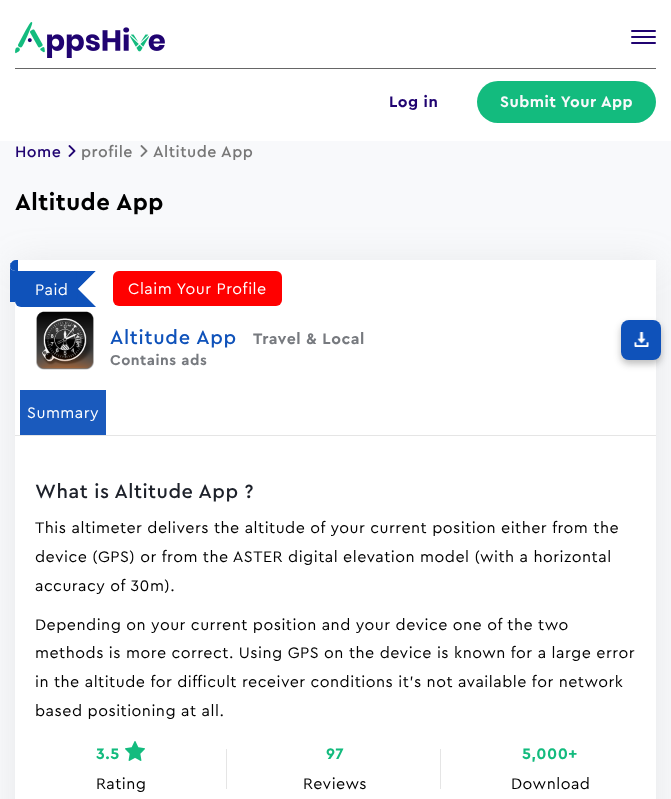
<!DOCTYPE html>
<meta charset="utf-8">
<style>body { margin: 0 } canvas { display: block }</style>
<canvas id="canvas" width="671" height="799"></canvas>
<script type="module">
  const canvas = document.getElementById("canvas");
  const ctx = canvas.getContext("2d");
  ctx.miterLimit = 4;
  ctx.fontKerning = "normal";
  async function loadImage(src) {
    const img = new Image();
    img.src = src;
    await img.decode();
    return img;
  }

  ctx.fillStyle = "#f8f9fb";
  ctx.fillRect(0, 0, 671, 799);
  ctx.fillStyle = "#ffffff";
  ctx.fillRect(0, 0, 671, 141);
  ctx.fillStyle = "#200371";
  ctx.beginPath();
  ctx.roundRect(631, 30, 25, 2, 1);
  ctx.fill();
  ctx.beginPath();
  ctx.roundRect(631, 36, 25, 2, 1);
  ctx.fill();
  ctx.beginPath();
  ctx.roundRect(631, 42, 25, 2, 1);
  ctx.fill();
  ctx.drawImage(await loadImage("img1.png"), 15, 22, 150, 36);
  ctx.fillStyle = "#666666";
  ctx.fillRect(15, 68, 641, 1);
  ctx.letterSpacing = "0.5px";
  ctx.font = "bold 16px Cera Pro";
  ctx.fillStyle = "#200371";
  ctx.fillText("Log in", 389, 107);
  ctx.fillStyle = "#13bb7e";
  ctx.beginPath();
  ctx.roundRect(477, 81, 179, 42, 21);
  ctx.fill();
  ctx.fillStyle = "#f8f9fb";
  ctx.fillText("Submit Your App", 500, 107);
  ctx.font = "500 16px Cera Pro";
  ctx.fillStyle = "#200371";
  ctx.fillText("Home", 15, 157);
  ctx.drawImage(await loadImage("img2.png"), 68, 145, 8, 12);
  ctx.fillStyle = "#777777";
  ctx.fillText("profile", 81, 157);
  ctx.drawImage(await loadImage("img3.png"), 140, 145, 8, 12);
  ctx.fillText("Altitude App", 153, 157);
  ctx.font = "bold 24px Cera Pro";
  ctx.fillStyle = "#000000";
  ctx.fillText("Altitude App", 15, 210);
  ctx.fillStyle = "rgba(141, 141, 141, 0.16)";
  ctx.filter = "blur(17.5px)";
  ctx.beginPath();
  ctx.rect(15, 263, 641, 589);
  ctx.fill();
  ctx.filter = "none";
  ctx.fillStyle = "#ffffff";
  ctx.fillRect(15, 260, 641, 539);
  ctx.fillStyle = "#0f52ba";
  ctx.fillRect(10, 263, 5, 39);
  ctx.fillStyle = "#ffffff";
  ctx.beginPath();
  ctx.roundRect(10, 260, 8, 11, [6, 0, 0, 5]);
  ctx.fill();
  ctx.fillStyle = "#0f52ba";
  ctx.beginPath();
  ctx.moveTo(16, 260);
  ctx.lineTo(18, 260);
  ctx.lineTo(18, 271);
  ctx.bezierCurveTo(16.5, 271, 14.5, 271, 13, 270.5);
  ctx.bezierCurveTo(7.5, 268, 10.5, 260, 16, 260);
  ctx.closePath();
  ctx.moveTo(18, 260);
  ctx.lineTo(18, 270);
  ctx.closePath();
  ctx.fill("evenodd");
  ctx.beginPath();
  ctx.roundRect(15, 271, 63, 36, [0, 0, 0, 6]);
  ctx.fill();
  ctx.font = "16px Cera Pro";
  ctx.fillStyle = "#ffffff";
  ctx.fillText("Paid", 35, 295);
  ctx.fillStyle = "#0f52ba";
  ctx.beginPath();
  ctx.moveTo(76, 271);
  ctx.lineTo(96, 271);
  ctx.lineTo(78, 289);
  ctx.closePath();
  ctx.fill();
  ctx.fillStyle = "#ffffff";
  ctx.beginPath();
  ctx.moveTo(96, 271);
  ctx.lineTo(96, 307);
  ctx.lineTo(78, 289);
  ctx.closePath();
  ctx.fill();
  ctx.fillStyle = "#0f52ba";
  ctx.beginPath();
  ctx.moveTo(96, 307);
  ctx.lineTo(76, 307);
  ctx.lineTo(78, 289);
  ctx.closePath();
  ctx.fill();
  ctx.fillStyle = "#ff0000";
  ctx.beginPath();
  ctx.roundRect(113, 271, 169, 35, 6);
  ctx.fill();
  ctx.fillStyle = "#ffffff";
  ctx.fillText("Claim Your Profile", 128, 294);
  ctx.drawImage(await loadImage("img4.png"), 36, 311, 58, 59);
  ctx.letterSpacing = "0.75px";
  ctx.font = "500 20px Cera Pro";
  ctx.fillStyle = "#0f52ba";
  ctx.fillText("Altitude App", 110, 344);
  ctx.letterSpacing = "0.5px";
  ctx.font = "bold 16px Cera Pro";
  ctx.fillStyle = "#777a7f";
  ctx.fillText("Travel & Local", 253, 344);
  ctx.font = "bold 15px Cera Pro";
  ctx.fillText("Contains ads", 110, 365);
  ctx.fillStyle = "#e5e5e5";
  ctx.fillRect(15, 435, 641, 1);
  ctx.fillStyle = "#1a5abd";
  ctx.fillRect(20, 390, 86, 45);
  ctx.font = "16px Cera Pro";
  ctx.fillStyle = "#ffffff";
  ctx.fillText("Summary", 27, 418);
  ctx.font = "500 20px Cera Pro";
  ctx.fillStyle = "#1d212a";
  ctx.fillText("What is Altitude App ?", 35, 498);
  ctx.font = "16px Cera Pro";
  ctx.fillStyle = "#000000";
  ctx.fillText("This altimeter delivers the altitude of your current position either from the", 35, 533);
  ctx.fillText("device (GPS) or from the ASTER digital elevation model (with a horizontal", 35, 562);
  ctx.fillText("accuracy of 30m).", 35, 591);
  ctx.fillText("Depending on your current position and your device one of the two", 35, 630);
  ctx.fillText("methods is more correct. Using GPS on the device is known for a large error", 35, 658);
  ctx.fillText("in the altitude for difficult receiver conditions it's not available for network", 35, 687);
  ctx.fillText("based positioning at all.", 35, 716);
  ctx.font = "bold 16px Cera Pro";
  ctx.fillStyle = "#13bb7e";
  ctx.fillText("3.5", 96, 759);
  ctx.drawImage(await loadImage("img5.png"), 125, 741, 20, 20);
  ctx.fillStyle = "#e5e5e5";
  ctx.fillRect(226, 749, 1, 40);
  ctx.font = "16px Cera Pro";
  ctx.fillStyle = "#000000";
  ctx.fillText("Rating", 96, 789);
  ctx.font = "bold 16px Cera Pro";
  ctx.fillStyle = "#13bb7e";
  ctx.fillText("97", 326, 759);
  ctx.fillStyle = "#e5e5e5";
  ctx.fillRect(440, 749, 1, 40);
  ctx.font = "16px Cera Pro";
  ctx.fillStyle = "#000000";
  ctx.fillText("Reviews", 303, 789);
  ctx.font = "bold 16px Cera Pro";
  ctx.fillStyle = "#13bb7e";
  ctx.fillText("5,000+", 522, 759);
  ctx.font = "16px Cera Pro";
  ctx.fillStyle = "#000000";
  ctx.fillText("Download", 511, 789);
  ctx.fillStyle = "rgba(20, 20, 20, 0.28)";
  ctx.filter = "blur(3.5px)";
  ctx.beginPath();
  ctx.roundRect(621, 324, 40, 40, 8);
  ctx.fill();
  ctx.filter = "none";
  ctx.fillStyle = "#0f52ba";
  ctx.beginPath();
  ctx.roundRect(621, 320, 40, 40, 8);
  ctx.fill();
  ctx.drawImage(await loadImage("img6.png"), 634, 332, 15, 15);
</script>
